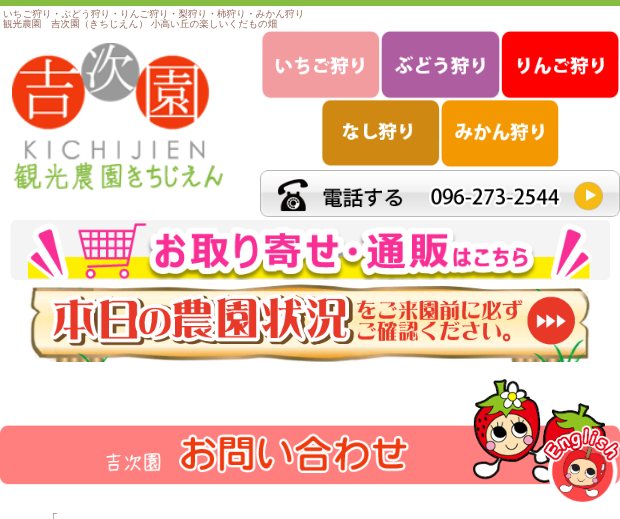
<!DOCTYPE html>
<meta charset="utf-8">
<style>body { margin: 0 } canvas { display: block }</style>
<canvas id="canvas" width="620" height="519"></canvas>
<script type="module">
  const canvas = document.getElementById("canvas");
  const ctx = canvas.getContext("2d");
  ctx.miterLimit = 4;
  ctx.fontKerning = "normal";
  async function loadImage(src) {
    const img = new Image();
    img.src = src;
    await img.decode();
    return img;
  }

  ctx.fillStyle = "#87bc43";
  ctx.fillRect(0, 0, 620, 519);
  ctx.fillStyle = "#ffffff";
  ctx.fillRect(0, 6, 620, 513);
  ctx.font = "500 9.6px WenQuanYi Zen Hei";
  ctx.fillStyle = "#956b60";
  ctx.fillText("いちご狩り・ぶどう狩り・りんご狩り・梨狩り・柿狩り・みかん狩り", 3, 17);
  ctx.fillText("観光農園　吉次園（きちじえん） 小高い丘の楽しいくだもの畑", 3, 27);
  ctx.drawImage(await loadImage("img1.png"), 262, 31, 118, 68);
  ctx.drawImage(await loadImage("img2.png"), 381, 31, 119, 68);
  ctx.drawImage(await loadImage("img3.png"), 501, 31, 118, 68);
  ctx.drawImage(await loadImage("img4.png"), 321, 99, 119, 67);
  ctx.drawImage(await loadImage("img5.png"), 441, 99, 118, 68);
  ctx.drawImage(await loadImage("img6.png"), 260, 170, 360, 47);
  ctx.drawImage(await loadImage("img7.png"), 10, 220, 600, 60);
  ctx.drawImage(await loadImage("img8.png"), 28, 284, 563, 78);
  ctx.drawImage(await loadImage("img9.png"), 12, 43, 211, 148);
  ctx.drawImage(await loadImage("img10.png"), 0, 379, 620, 106);
  ctx.font = "500 12px WenQuanYi Zen Hei";
  ctx.fillStyle = "#5f4646";
  ctx.fillText("「", 46, 523);
  ctx.drawImage(await loadImage("img11.png"), 542, 425, 78, 77);
</script>
